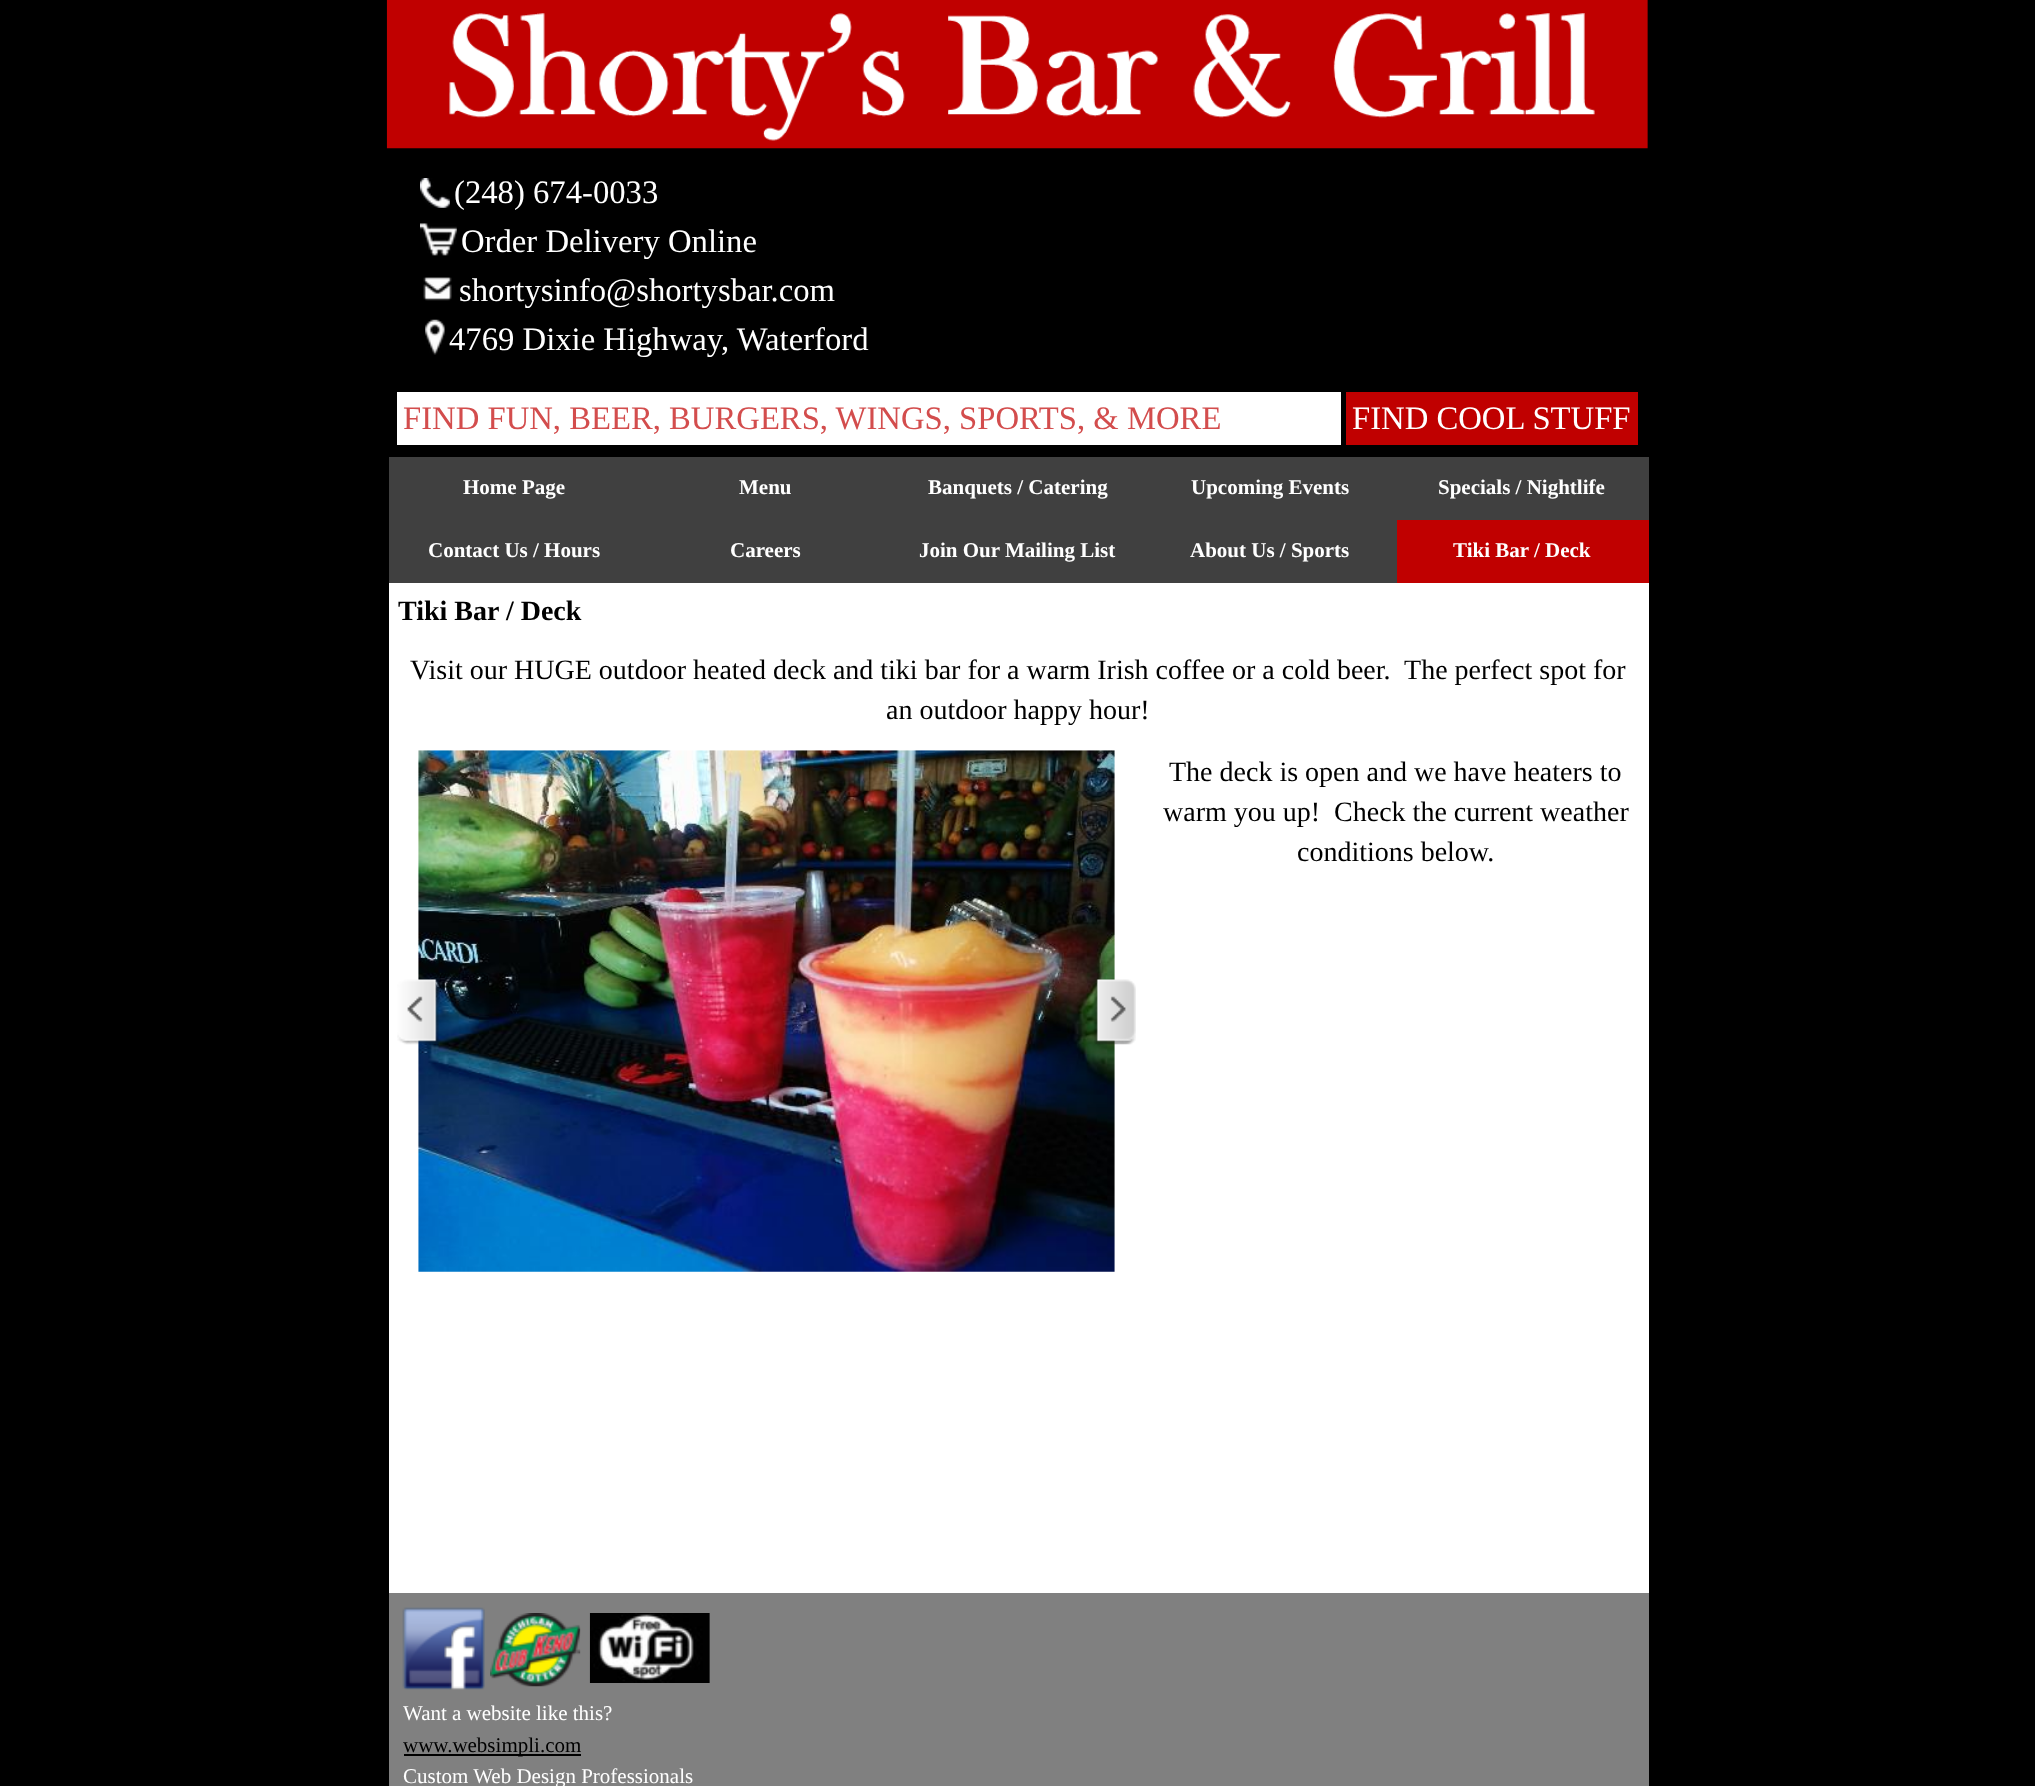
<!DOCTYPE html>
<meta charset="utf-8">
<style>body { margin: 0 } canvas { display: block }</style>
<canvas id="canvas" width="2035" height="1786"></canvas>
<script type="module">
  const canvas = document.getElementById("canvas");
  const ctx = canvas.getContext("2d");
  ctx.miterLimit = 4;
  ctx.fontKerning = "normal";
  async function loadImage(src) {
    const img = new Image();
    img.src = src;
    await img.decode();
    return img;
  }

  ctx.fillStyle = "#000000";
  ctx.fillRect(0, 0, 2035, 1786);
  ctx.drawImage(await loadImage("img1.png"), 386, 0, 1262, 149);
  ctx.drawImage(await loadImage("img2.png"), 420, 178, 30, 30);
  ctx.font = "32.7px Liberation Serif";
  ctx.fillStyle = "#ffffff";
  ctx.fillText("(248) 674-0033", 454, 203);
  ctx.drawImage(await loadImage("img3.png"), 420, 223, 37, 33);
  ctx.fillText("Order Delivery Online", 461, 252);
  ctx.drawImage(await loadImage("img4.png"), 423, 277, 29, 24);
  ctx.fillText("shortysinfo@shortysbar.com", 459, 301);
  ctx.drawImage(await loadImage("img5.png"), 425, 319, 20, 36);
  ctx.fillText("4769 Dixie Highway, Waterford", 449, 350);
  ctx.fillRect(397, 392, 944, 53);
  ctx.fillStyle = "#d34d4d";
  ctx.fillText("FIND FUN, BEER, BURGERS, WINGS, SPORTS, & MORE", 403, 429);
  ctx.fillStyle = "#c00000";
  ctx.fillRect(1346, 392, 292, 53);
  ctx.fillStyle = "#ffffff";
  ctx.fillText("FIND COOL STUFF", 1352, 429);
  ctx.fillStyle = "#404040";
  ctx.fillRect(389, 457, 1260, 63);
  ctx.font = "bold 21px Liberation Serif";
  ctx.fillStyle = "#ffffff";
  ctx.fillText("Home Page", 463, 494);
  ctx.fillText("Menu", 739, 494);
  ctx.fillText("Banquets / Catering", 928, 494);
  ctx.fillText("Upcoming Events", 1191, 494);
  ctx.fillText("Specials / Nightlife", 1438, 494);
  ctx.fillStyle = "#404040";
  ctx.fillRect(389, 520, 1008, 63);
  ctx.fillStyle = "#ffffff";
  ctx.fillText("Contact Us / Hours", 428, 557);
  ctx.fillText("Careers", 730, 557);
  ctx.fillText("Join Our Mailing List", 919, 557);
  ctx.fillText("About Us / Sports", 1190, 557);
  ctx.fillStyle = "#c00000";
  ctx.fillRect(1397, 520, 252, 63);
  ctx.fillStyle = "#ffffff";
  ctx.fillText("Tiki Bar / Deck", 1453, 557);
  ctx.fillRect(389, 583, 1260, 1010);
  ctx.font = "bold 28px Liberation Serif";
  ctx.fillStyle = "#000000";
  ctx.fillText("Tiki Bar / Deck", 398, 620);
  ctx.font = "28px Liberation Serif";
  ctx.fillText("Visit our HUGE outdoor heated deck and tiki bar for a warm Irish coffee or a cold beer.  The perfect spot for", 410, 679);
  ctx.fillText("an outdoor happy hour!", 886, 719);
  ctx.drawImage(await loadImage("img6.png"), 418, 750, 697, 522);
  ctx.drawImage(await loadImage("img7.png"), 397, 979, 42, 66);
  ctx.drawImage(await loadImage("img8.png"), 1094, 979, 42, 66);
  ctx.fillText("The deck is open and we have heaters to", 1169, 781);
  ctx.fillText("warm you up!  Check the current weather", 1163, 821);
  ctx.fillText("conditions below.", 1297, 861);
  ctx.fillStyle = "#808080";
  ctx.fillRect(389, 1593, 1260, 193);
  ctx.drawImage(await loadImage("img9.png"), 402, 1607, 83, 83);
  ctx.drawImage(await loadImage("img10.png"), 490, 1613, 91, 74);
  ctx.drawImage(await loadImage("img11.png"), 589, 1613, 121, 70);
  ctx.font = "21px Liberation Serif";
  ctx.fillStyle = "#ffffff";
  ctx.fillText("Want a website like this?", 403, 1720);
  ctx.fillStyle = "#000000";
  ctx.fillRect(404, 1754, 177, 2);
  ctx.fillText("www.websimpli.com", 403, 1752);
  ctx.fillStyle = "#ffffff";
  ctx.fillText("Custom Web Design Professionals", 403, 1783);
</script>
